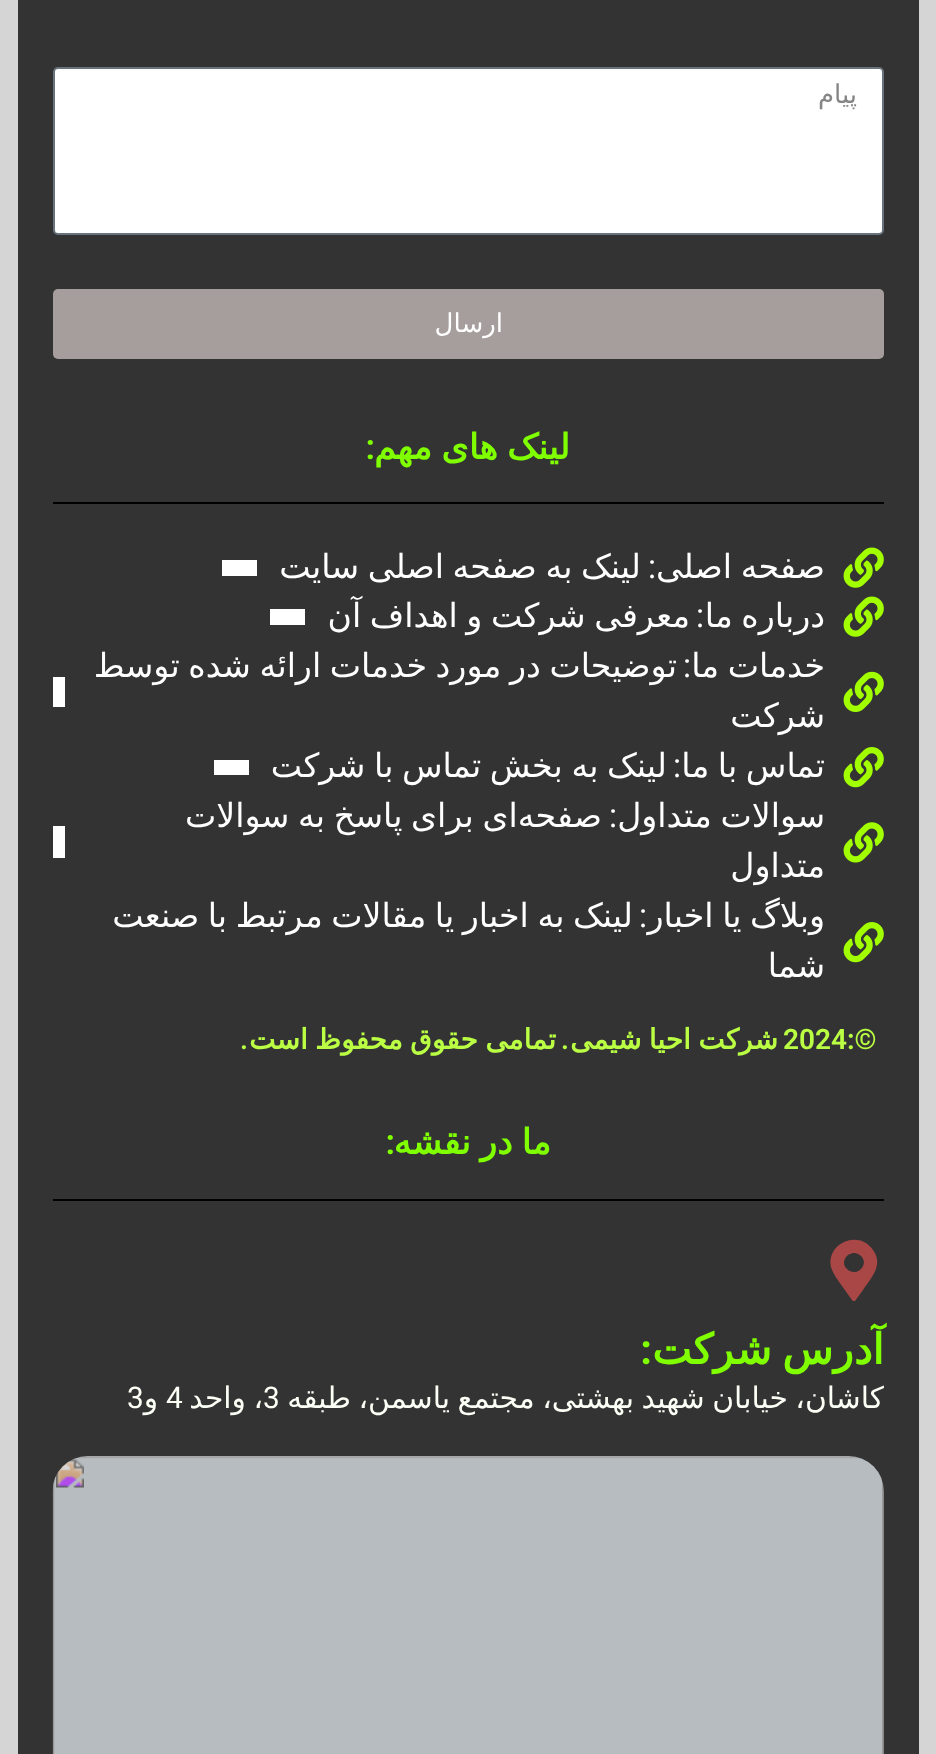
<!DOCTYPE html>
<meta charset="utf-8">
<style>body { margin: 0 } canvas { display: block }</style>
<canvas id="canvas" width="936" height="1754"></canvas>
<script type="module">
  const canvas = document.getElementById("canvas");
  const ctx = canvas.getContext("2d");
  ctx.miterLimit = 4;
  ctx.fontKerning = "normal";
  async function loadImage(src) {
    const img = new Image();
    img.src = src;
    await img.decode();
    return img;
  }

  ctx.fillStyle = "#d5d5d5";
  ctx.fillRect(0, 0, 936, 1754);
  ctx.fillStyle = "#333333";
  ctx.fillRect(18, 0, 901, 1754);
  ctx.fillStyle = "#ffffff";
  ctx.beginPath();
  ctx.roundRect(54, 68, 829, 166, 4);
  ctx.fill();
  ctx.strokeStyle = "#69727d";
  ctx.lineWidth = 2;
  ctx.stroke();
  ctx.direction = "rtl";
  ctx.font = "26px DejaVu Sans";
  ctx.fillStyle = "#858585";
  ctx.fillText("پیام", 857, 103);
  ctx.fillStyle = "#a69d9d";
  ctx.beginPath();
  ctx.roundRect(53, 289, 831, 70, 5);
  ctx.fill();
  ctx.fillStyle = "#ffffff";
  ctx.fillText("ارسال", 503, 332);
  ctx.wordSpacing = "-2px";
  ctx.font = "bold 35px DejaVu Sans";
  ctx.fillStyle = "#7fff00";
  ctx.fillText("لینک های مهم", 570, 459);
  ctx.wordSpacing = "0px";
  ctx.font = "600 35px Roboto";
  ctx.fillText(":", 375, 459);
  ctx.fillStyle = "#000000";
  ctx.fillRect(53, 502, 831, 2);
  ctx.drawImage(await loadImage("img1.png"), 843, 547, 41, 41);
  ctx.wordSpacing = "-2px";
  ctx.font = "33.25px DejaVu Sans";
  ctx.fillStyle = "#ffffff";
  ctx.fillText("صفحه اصلی", 825, 578);
  ctx.wordSpacing = "0px";
  ctx.font = "33.25px Roboto";
  ctx.fillText(":", 656, 578);
  ctx.wordSpacing = "-2px";
  ctx.font = "33.25px DejaVu Sans";
  ctx.fillText("لینک به صفحه اصلی سایت", 641, 578);
  ctx.fillRect(222, 560, 35, 16);
  ctx.drawImage(await loadImage("img1.png"), 843, 596, 41, 41);
  ctx.fillText("درباره ما", 825, 627);
  ctx.wordSpacing = "0px";
  ctx.font = "33.25px Roboto";
  ctx.fillText(":", 704, 627);
  ctx.wordSpacing = "-2px";
  ctx.font = "33.25px DejaVu Sans";
  ctx.fillText("معرفی شرکت و اهداف آن", 690, 627);
  ctx.fillRect(270, 609, 35, 16);
  ctx.drawImage(await loadImage("img2.png"), 843, 671, 41, 41);
  ctx.fillText("خدمات ما", 825, 677);
  ctx.wordSpacing = "0px";
  ctx.font = "33.25px Roboto";
  ctx.fillText(":", 691, 677);
  ctx.wordSpacing = "-2px";
  ctx.font = "33.25px DejaVu Sans";
  ctx.fillText("توضیحات در مورد خدمات ارائه شده توسط", 677, 677);
  ctx.wordSpacing = "0px";
  ctx.fillText("شرکت", 825, 727);
  ctx.fillRect(53, 677, 12, 30);
  ctx.drawImage(await loadImage("img3.png"), 843, 747, 41, 41);
  ctx.wordSpacing = "-2px";
  ctx.fillText("تماس با ما", 825, 777);
  ctx.wordSpacing = "0px";
  ctx.font = "33.25px Roboto";
  ctx.fillText(":", 681, 777);
  ctx.wordSpacing = "-2px";
  ctx.font = "33.25px DejaVu Sans";
  ctx.fillText("لینک به بخش تماس با شرکت", 667, 777);
  ctx.fillRect(214, 760, 35, 15);
  ctx.drawImage(await loadImage("img4.png"), 843, 822, 41, 41);
  ctx.fillText("سوالات متداول", 825, 827);
  ctx.wordSpacing = "0px";
  ctx.font = "33.25px Roboto";
  ctx.fillText(":", 617, 827);
  ctx.wordSpacing = "-2px";
  ctx.font = "33.25px DejaVu Sans";
  ctx.fillText("صفحه‌ای برای پاسخ به سوالات", 602, 827);
  ctx.wordSpacing = "0px";
  ctx.fillText("متداول", 825, 877);
  ctx.fillRect(53, 826, 12, 32);
  ctx.drawImage(await loadImage("img3.png"), 843, 922, 41, 41);
  ctx.wordSpacing = "-2px";
  ctx.fillText("وبلاگ یا اخبار", 825, 927);
  ctx.wordSpacing = "0px";
  ctx.font = "33.25px Roboto";
  ctx.fillText(":", 647, 927);
  ctx.wordSpacing = "-2px";
  ctx.font = "33.25px DejaVu Sans";
  ctx.fillText("لینک به اخبار یا مقالات مرتبط با صنعت", 633, 927);
  ctx.wordSpacing = "0px";
  ctx.fillText("شما", 825, 977);
  ctx.direction = "ltr";
  ctx.font = "600 28px Roboto";
  ctx.fillStyle = "#baff43";
  ctx.fillText("2024:©", 783, 1049);
  ctx.wordSpacing = "-1.5px";
  ctx.direction = "rtl";
  ctx.font = "bold 28px DejaVu Sans";
  ctx.fillText("شرکت احیا شیمی", 778, 1049);
  ctx.wordSpacing = "0px";
  ctx.font = "600 28px Roboto";
  ctx.fillText(".", 569, 1049);
  ctx.wordSpacing = "-1.5px";
  ctx.font = "bold 28px DejaVu Sans";
  ctx.fillText("تمامی حقوق محفوظ است", 556, 1049);
  ctx.wordSpacing = "0px";
  ctx.font = "600 28px Roboto";
  ctx.fillText(".", 248, 1049);
  ctx.wordSpacing = "-2px";
  ctx.font = "bold 35px DejaVu Sans";
  ctx.fillStyle = "#7fff00";
  ctx.fillText("ما در نقشه", 551, 1154);
  ctx.wordSpacing = "0px";
  ctx.font = "600 35px Roboto";
  ctx.fillText(":", 395, 1154);
  ctx.fillStyle = "#000000";
  ctx.fillRect(53, 1199, 831, 2);
  ctx.fillStyle = "#a94747";
  ctx.beginPath();
  ctx.moveTo(852, 1300);
  ctx.lineTo(842, 1286);
  ctx.bezierCurveTo(838, 1280, 833, 1274, 831, 1267);
  ctx.bezierCurveTo(826, 1243, 859, 1229, 873, 1250);
  ctx.bezierCurveTo(884, 1265, 871, 1278, 863, 1290);
  ctx.lineTo(855, 1301);
  ctx.bezierCurveTo(854, 1301, 852, 1301, 852, 1300);
  ctx.closePath();
  ctx.moveTo(847, 1269);
  ctx.bezierCurveTo(856, 1278, 870, 1265, 861, 1256);
  ctx.bezierCurveTo(852, 1247, 838, 1260, 847, 1269);
  ctx.closePath();
  ctx.fill();
  ctx.wordSpacing = "-3px";
  ctx.font = "bold 42px DejaVu Sans";
  ctx.fillStyle = "#7fff00";
  ctx.fillText("آدرس شرکت", 884, 1364);
  ctx.wordSpacing = "0px";
  ctx.font = "bold 42px Roboto";
  ctx.fillText(":", 652, 1364);
  ctx.wordSpacing = "-2px";
  ctx.font = "29.75px DejaVu Sans";
  ctx.fillStyle = "#fcfff6";
  ctx.fillText("کاشان، خیابان شهید بهشتی، مجتمع یاسمن، طبقه", 884, 1408);
  ctx.wordSpacing = "0px";
  ctx.direction = "ltr";
  ctx.font = "29.75px Roboto";
  ctx.fillText("3", 263, 1408);
  ctx.wordSpacing = "-2px";
  ctx.direction = "rtl";
  ctx.font = "29.75px DejaVu Sans";
  ctx.fillText("، واحد", 263, 1408);
  ctx.wordSpacing = "0px";
  ctx.direction = "ltr";
  ctx.font = "29.75px Roboto";
  ctx.fillText("4", 166, 1408);
  ctx.direction = "rtl";
  ctx.font = "29.75px DejaVu Sans";
  ctx.fillText("و", 158, 1408);
  ctx.direction = "ltr";
  ctx.font = "29.75px Roboto";
  ctx.fillText("3", 127, 1408);
  ctx.drawImage(await loadImage("img5.png"), 52, 1456, 832, 298);
</script>
